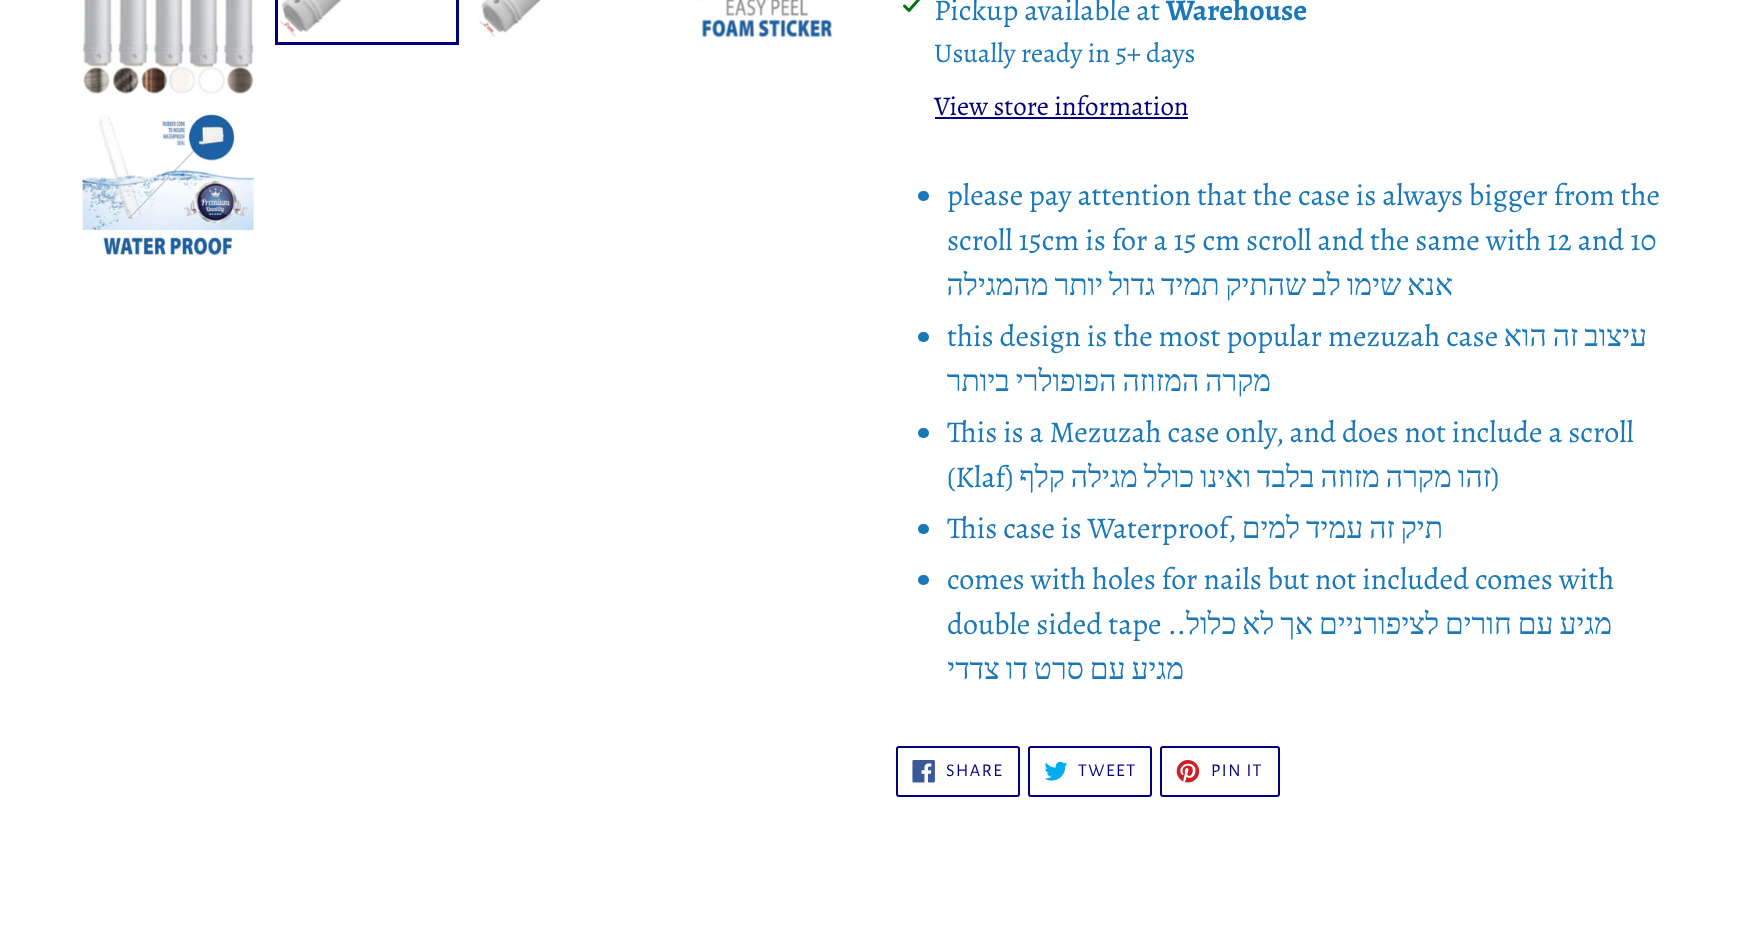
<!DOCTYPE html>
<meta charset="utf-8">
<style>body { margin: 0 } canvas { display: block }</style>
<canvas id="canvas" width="1744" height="946"></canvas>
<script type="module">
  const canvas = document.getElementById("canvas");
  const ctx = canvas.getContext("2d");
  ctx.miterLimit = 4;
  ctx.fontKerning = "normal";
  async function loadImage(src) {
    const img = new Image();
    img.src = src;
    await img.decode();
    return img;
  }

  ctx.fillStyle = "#ffffff";
  ctx.fillRect(0, 0, 1744, 946);
  ctx.drawImage(await loadImage("img1.png"), 82, 0, 172, 94);
  ctx.strokeStyle = "#000080";
  ctx.lineWidth = 3;
  ctx.strokeRect(276.5, -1.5, 181, 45);
  ctx.drawImage(await loadImage("img2.png"), 280, 0, 62, 37);
  ctx.drawImage(await loadImage("img3.png"), 479, 0, 62, 37);
  ctx.drawImage(await loadImage("img4.png"), 696, 0, 137, 38);
  ctx.drawImage(await loadImage("img5.png"), 82, 114, 172, 142);
  ctx.drawImage(await loadImage("img6.png"), 903, 0, 18, 12);
  ctx.font = "30px Alegreya";
  ctx.fillStyle = "#1878b9";
  ctx.fillText("Pickup available at", 934, 20);
  ctx.font = "bold 30px Alegreya";
  ctx.fillText("Warehouse", 1166, 20);
  ctx.font = "27px Alegreya";
  ctx.fillText("Usually ready in 5+ days", 934, 62);
  ctx.fillStyle = "#000080";
  ctx.fillText("View store information", 934, 115);
  ctx.fillRect(935, 117, 253, 2);
  ctx.fillStyle = "#1878b9";
  ctx.beginPath();
  ctx.roundRect(918, 191, 11, 10, 5);
  ctx.fill();
  ctx.font = "30px Alegreya";
  ctx.fillText("please pay attention that the case is always bigger from the", 947, 205);
  ctx.fillText("scroll 15cm is for a 15 cm scroll and the same with 12 and 10", 947, 250);
  ctx.wordSpacing = "-1.5px";
  ctx.direction = "rtl";
  ctx.font = "30px Liberation Serif";
  ctx.fillText("אנא שימו לב שהתיק תמיד גדול יותר מהמגילה", 1453, 295);
  ctx.beginPath();
  ctx.roundRect(918, 332, 11, 10, 5);
  ctx.fill();
  ctx.wordSpacing = "0px";
  ctx.direction = "ltr";
  ctx.font = "30px Alegreya";
  ctx.fillText("this design is the most popular mezuzah case", 947, 346);
  ctx.wordSpacing = "-1.5px";
  ctx.direction = "rtl";
  ctx.font = "30px Liberation Serif";
  ctx.fillText("עיצוב זה הוא", 1647, 346);
  ctx.fillText("מקרה המזוזה הפופולרי ביותר", 1271, 391);
  ctx.beginPath();
  ctx.roundRect(918, 428, 11, 10, 5);
  ctx.fill();
  ctx.wordSpacing = "0px";
  ctx.direction = "ltr";
  ctx.font = "30px Alegreya";
  ctx.fillText("This is a Mezuzah case only, and does not include a scroll", 947, 442);
  ctx.fillText("(Klaf)", 947, 487);
  ctx.wordSpacing = "-1.5px";
  ctx.direction = "rtl";
  ctx.font = "30px Liberation Serif";
  ctx.fillText("זהו מקרה מזוזה בלבד ואינו כולל מגילה קלף", 1491, 487);
  ctx.wordSpacing = "0px";
  ctx.direction = "ltr";
  ctx.font = "30px Alegreya";
  ctx.fillText(")", 1491, 487);
  ctx.beginPath();
  ctx.roundRect(918, 524, 11, 10, 5);
  ctx.fill();
  ctx.fillText("This case is Waterproof,", 947, 538);
  ctx.wordSpacing = "-1.5px";
  ctx.direction = "rtl";
  ctx.font = "30px Liberation Serif";
  ctx.fillText("תיק זה עמיד למים", 1443, 538);
  ctx.beginPath();
  ctx.roundRect(918, 575, 11, 10, 5);
  ctx.fill();
  ctx.wordSpacing = "0px";
  ctx.direction = "ltr";
  ctx.font = "30px Alegreya";
  ctx.fillText("comes with holes for nails but not included comes with", 947, 589);
  ctx.fillText("double sided tape", 947, 634);
  ctx.direction = "rtl";
  ctx.fillText("..", 1186, 634);
  ctx.wordSpacing = "-1.5px";
  ctx.font = "30px Liberation Serif";
  ctx.fillText("מגיע עם חורים לציפורניים אך לא כלול", 1612, 634);
  ctx.fillText("מגיע עם סרט דו צדדי", 1184, 679);
  ctx.beginPath();
  ctx.roundRect(897, 747, 122, 49, 2);
  ctx.lineWidth = 2;
  ctx.stroke();
  ctx.drawImage(await loadImage("img7.png"), 912, 760, 23, 23);
  ctx.letterSpacing = "1.5px";
  ctx.wordSpacing = "0px";
  ctx.direction = "ltr";
  ctx.font = "18px Alegreya Sans";
  ctx.fillStyle = "#000080";
  ctx.fillText("SHARE", 946, 776);
  ctx.beginPath();
  ctx.roundRect(1029, 747, 122, 49, 2);
  ctx.stroke();
  ctx.drawImage(await loadImage("img8.png"), 1044, 761, 24, 20);
  ctx.fillText("TWEET", 1078, 776);
  ctx.beginPath();
  ctx.roundRect(1161, 747, 118, 49, 2);
  ctx.stroke();
  ctx.drawImage(await loadImage("img9.png"), 1176, 760, 24, 23);
  ctx.fillText("PIN IT", 1211, 776);
</script>
